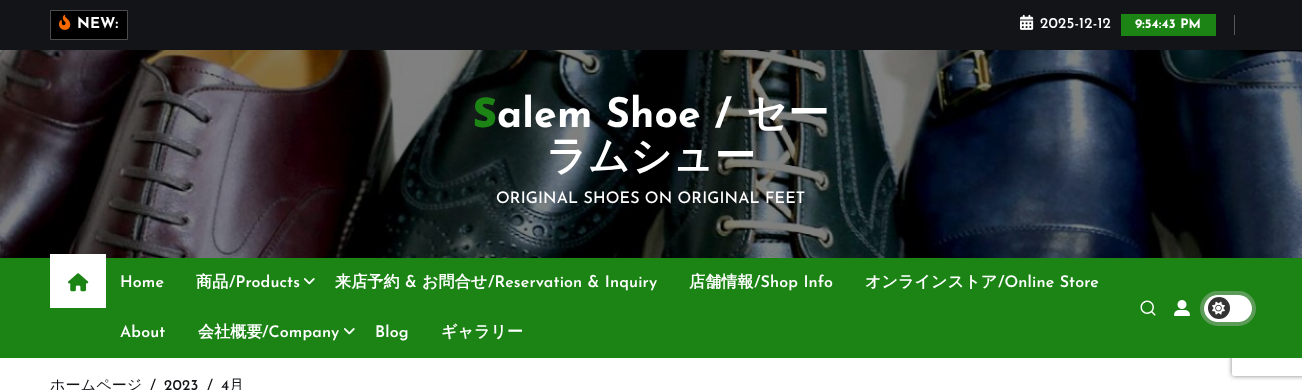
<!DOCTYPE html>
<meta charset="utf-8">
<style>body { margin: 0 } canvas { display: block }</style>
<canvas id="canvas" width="1302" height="390"></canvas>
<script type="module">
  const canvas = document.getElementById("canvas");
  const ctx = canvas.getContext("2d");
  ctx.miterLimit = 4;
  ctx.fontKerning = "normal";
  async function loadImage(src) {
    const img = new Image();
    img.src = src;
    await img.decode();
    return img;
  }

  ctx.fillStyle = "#ffffff";
  ctx.fillRect(0, 0, 1302, 390);
  ctx.fillStyle = "#121418";
  ctx.fillRect(0, 0, 1302, 50);
  ctx.fillStyle = "#000000";
  ctx.beginPath();
  ctx.rect(50.5, 10.5, 77, 29);
  ctx.fill();
  ctx.strokeStyle = "#4c4c4c";
  ctx.stroke();
  ctx.drawImage(await loadImage("img1.png"), 59, 14, 12, 16);
  ctx.letterSpacing = "0.15px";
  ctx.font = "bold 15px Josefin Sans";
  ctx.fillStyle = "#ffffff";
  ctx.fillText("NEW:", 77, 28);
  ctx.drawImage(await loadImage("img2.png"), 1020, 14, 14, 16);
  ctx.font = "500 15px Josefin Sans";
  ctx.fillText("2025-12-12", 1040, 28);
  ctx.fillStyle = "#1b8415";
  ctx.fillRect(1121, 14, 95, 22);
  ctx.font = "bold 13px Josefin Sans";
  ctx.fillStyle = "#ffffff";
  ctx.fillText("9:54:43 PM", 1135, 28);
  ctx.fillStyle = "#56585a";
  ctx.fillRect(1234, 15, 1, 20);
  ctx.drawImage(await loadImage("img3.png"), 0, 50, 1302, 208);
  ctx.font = "900 41px Noto Sans";
  ctx.fillStyle = "#1b8415";
  ctx.fillText("S", 473, 127);
  ctx.font = "bold 41px Josefin Sans";
  ctx.fillStyle = "#ffffff";
  ctx.fillText("alem Shoe /", 497, 127);
  ctx.font = "bold 41px WenQuanYi Zen Hei";
  ctx.fillText("セー", 746, 127);
  ctx.fillText("ラムシュー", 546, 170);
  ctx.font = "500 16px Josefin Sans";
  ctx.fillText("ORIGINAL SHOES ON ORIGINAL FEET", 496, 203);
  ctx.save();
  ctx.beginPath();
  ctx.moveTo(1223, 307);
  ctx.lineTo(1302, 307);
  ctx.lineTo(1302, 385);
  ctx.lineTo(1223, 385);
  ctx.closePath();
  ctx.moveTo(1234, 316);
  ctx.lineTo(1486, 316);
  ctx.bezierCurveTo(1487, 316, 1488, 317, 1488, 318);
  ctx.lineTo(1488, 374);
  ctx.bezierCurveTo(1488, 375, 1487, 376, 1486, 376);
  ctx.lineTo(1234, 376);
  ctx.bezierCurveTo(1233, 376, 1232, 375, 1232, 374);
  ctx.lineTo(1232, 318);
  ctx.bezierCurveTo(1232, 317, 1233, 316, 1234, 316);
  ctx.closePath();
  ctx.clip("evenodd");
  ctx.fillStyle = "#808080";
  ctx.filter = "blur(2.5px)";
  ctx.beginPath();
  ctx.roundRect(1232, 316, 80, 60, 2);
  ctx.fill();
  ctx.filter = "none";
  ctx.restore();
  ctx.fillStyle = "#1b8415";
  ctx.fillRect(0, 258, 1302, 100);
  ctx.fillStyle = "#ffffff";
  ctx.fillRect(50, 254, 56, 54);
  ctx.drawImage(await loadImage("img4.png"), 68, 273, 21, 19);
  ctx.font = "600 16px Josefin Sans";
  ctx.fillText("Home", 120, 287);
  ctx.font = "bold 16px WenQuanYi Zen Hei";
  ctx.fillText("商品", 196, 287);
  ctx.font = "600 16px Josefin Sans";
  ctx.fillText("/Products", 229, 287);
  ctx.drawImage(await loadImage("img5.png"), 304, 278, 11, 7);
  ctx.font = "bold 16px WenQuanYi Zen Hei";
  ctx.fillText("来店予約", 335, 287);
  ctx.font = "600 16px Josefin Sans";
  ctx.fillText("&", 405, 287);
  ctx.font = "bold 16px WenQuanYi Zen Hei";
  ctx.fillText("お問合せ", 422, 287);
  ctx.font = "600 16px Josefin Sans";
  ctx.fillText("/Reservation & Inquiry", 488, 287);
  ctx.font = "bold 16px WenQuanYi Zen Hei";
  ctx.fillText("店舗情報", 689, 287);
  ctx.font = "600 16px Josefin Sans";
  ctx.fillText("/Shop Info", 754, 287);
  ctx.font = "bold 16px WenQuanYi Zen Hei";
  ctx.fillText("オンラインストア", 865, 287);
  ctx.font = "600 16px Josefin Sans";
  ctx.fillText("/Online Store", 998, 287);
  ctx.fillText("About", 120, 337);
  ctx.font = "bold 16px WenQuanYi Zen Hei";
  ctx.fillText("会社概要", 198, 337);
  ctx.font = "600 16px Josefin Sans";
  ctx.fillText("/Company", 262, 337);
  ctx.drawImage(await loadImage("img5.png"), 344, 328, 11, 7);
  ctx.fillText("Blog", 375, 337);
  ctx.font = "bold 16px WenQuanYi Zen Hei";
  ctx.fillText("ギャラリー", 441, 337);
  ctx.drawImage(await loadImage("img6.png"), 1140, 300, 16, 16);
  ctx.drawImage(await loadImage("img7.png"), 1174, 300, 16, 16);
  ctx.beginPath();
  ctx.roundRect(1202, 293, 52, 31, 15.5);
  ctx.strokeStyle = "#5c9b58";
  ctx.lineWidth = 4;
  ctx.stroke();
  ctx.beginPath();
  ctx.roundRect(1204, 295, 48, 27, 13.5);
  ctx.fill();
  ctx.fillStyle = "#333333";
  ctx.beginPath();
  ctx.arc(1219, 308, 11, 0, Math.PI * 2);
  ctx.fill();
  ctx.drawImage(await loadImage("img8.png"), 1212, 301, 13, 14);
  ctx.font = "500 15px WenQuanYi Zen Hei";
  ctx.fillStyle = "#121418";
  ctx.fillText("ホームページ", 50, 390);
  ctx.font = "500 15px Josefin Sans";
  ctx.fillText("/", 150, 390);
  ctx.fillText("2023", 164, 390);
  ctx.fillText("/", 207, 390);
  ctx.fillText("4", 221, 390);
  ctx.font = "500 15px WenQuanYi Zen Hei";
  ctx.fillText("月", 229, 390);
</script>
